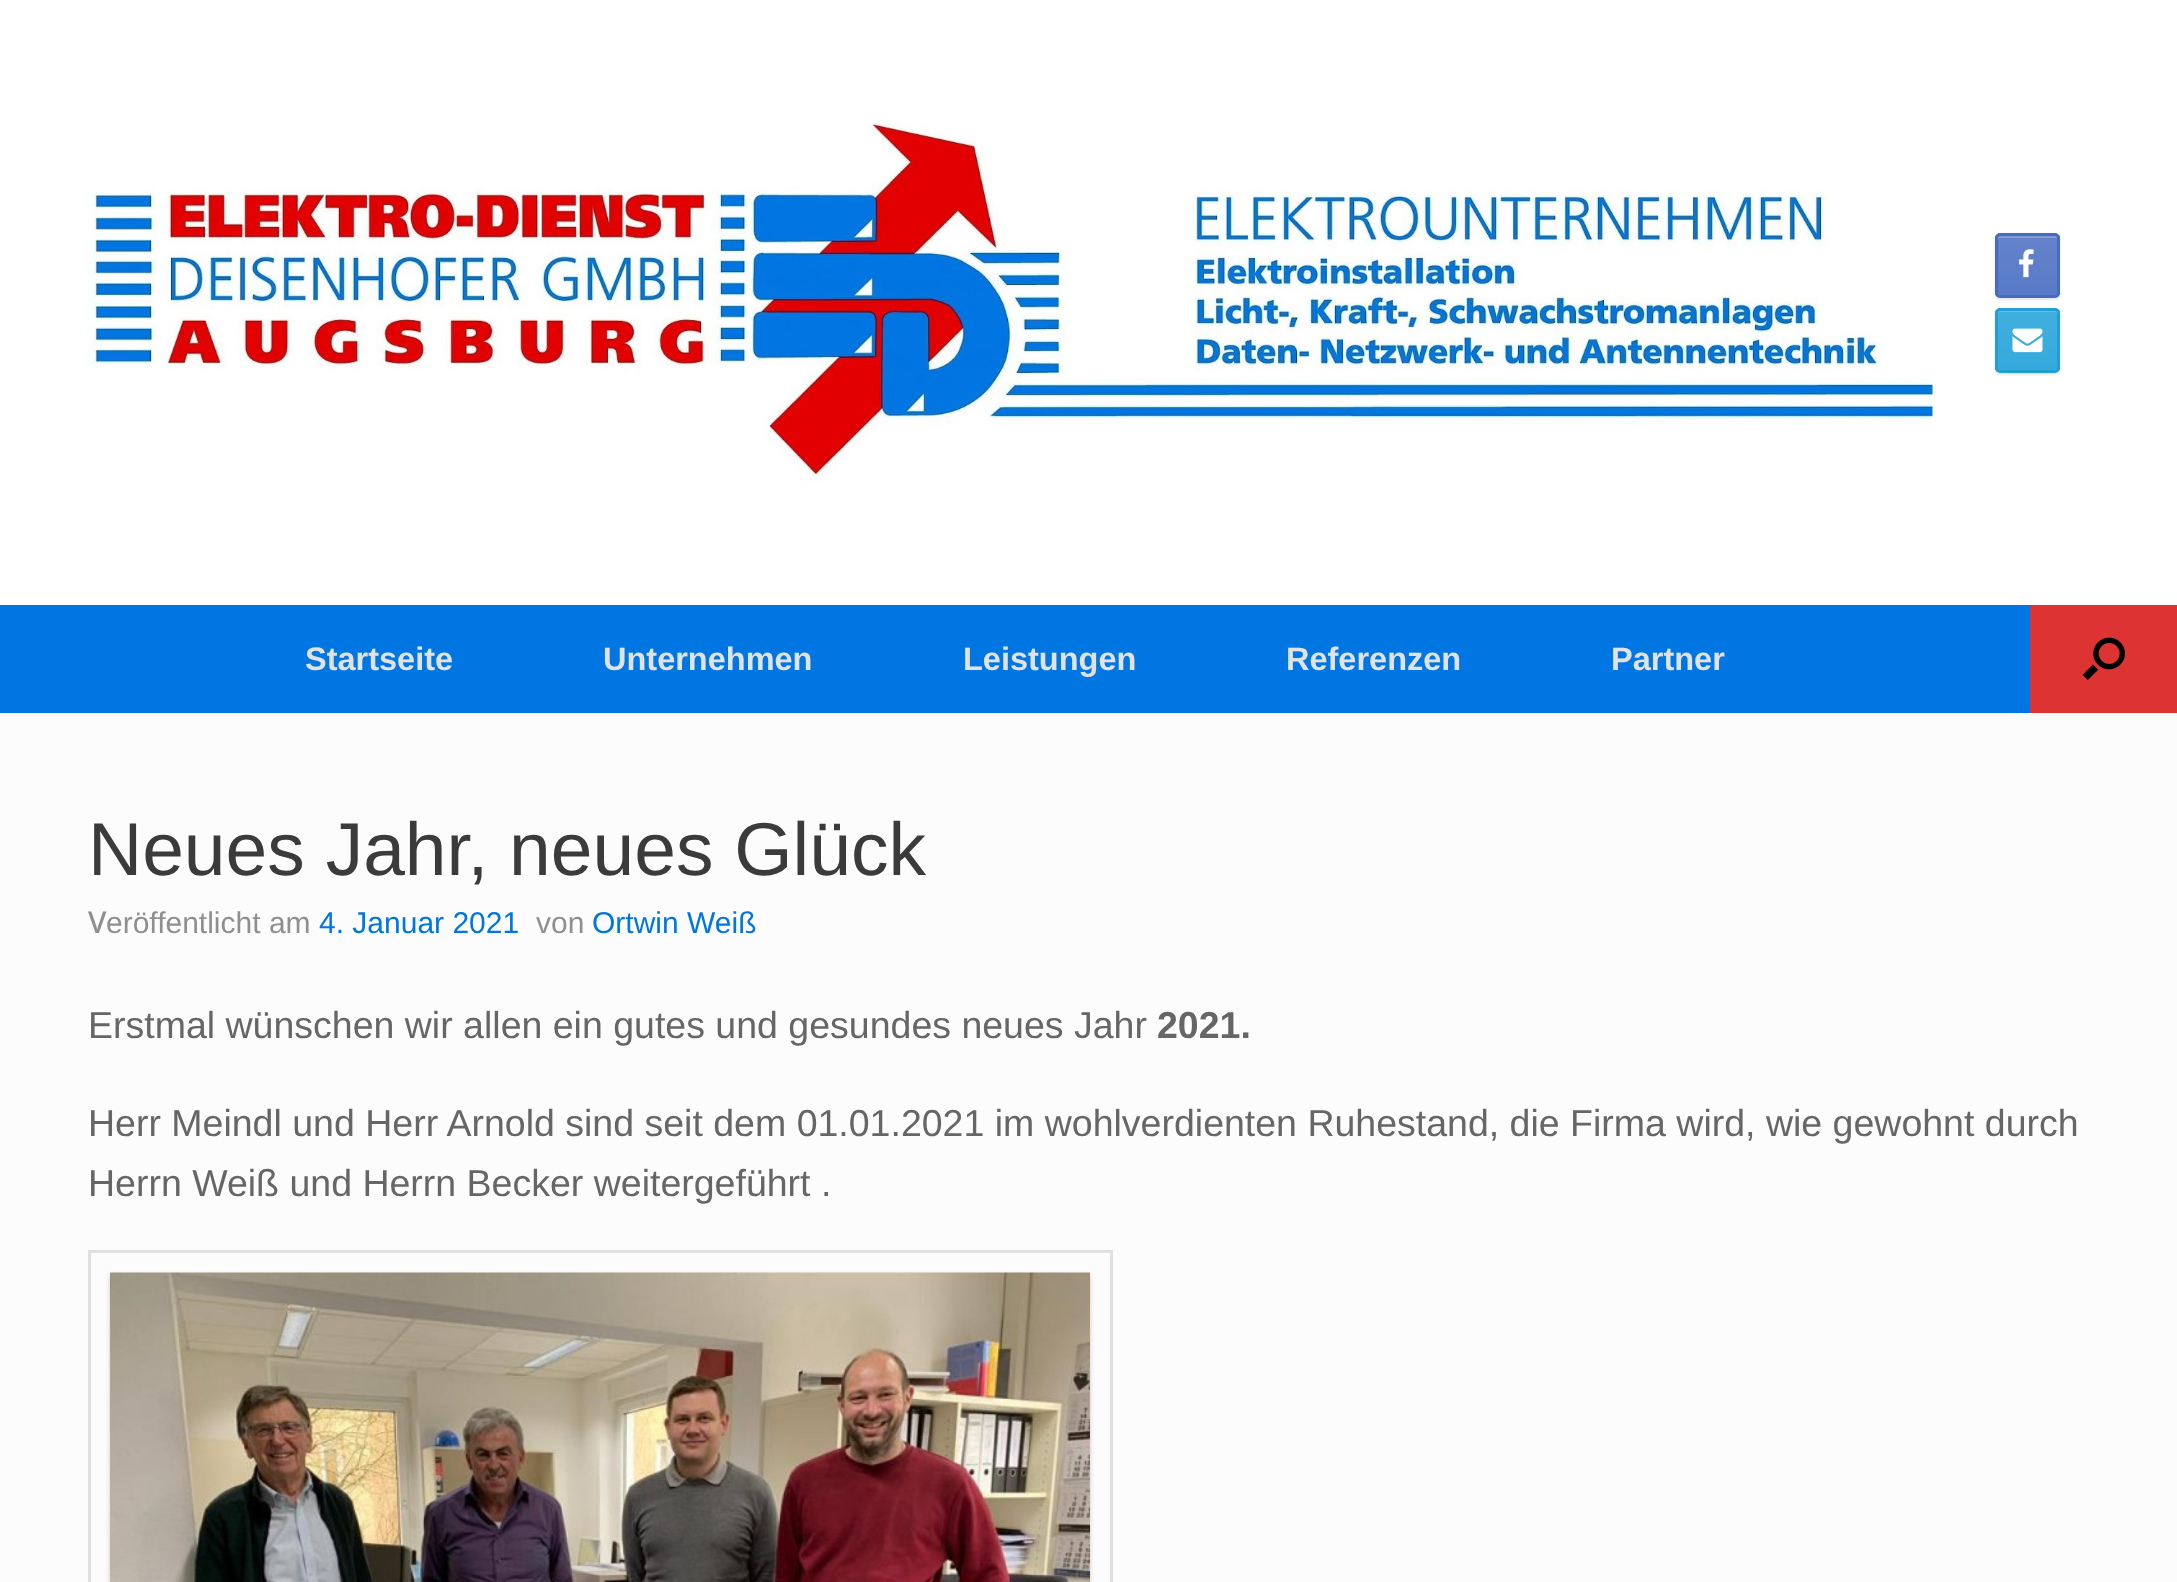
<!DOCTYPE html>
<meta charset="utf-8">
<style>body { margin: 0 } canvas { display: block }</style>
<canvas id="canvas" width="2177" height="1582"></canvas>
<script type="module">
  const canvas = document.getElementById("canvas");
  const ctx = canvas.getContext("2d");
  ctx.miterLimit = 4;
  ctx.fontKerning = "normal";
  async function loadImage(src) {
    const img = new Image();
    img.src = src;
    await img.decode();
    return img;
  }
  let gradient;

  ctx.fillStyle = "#ffffff";
  ctx.fillRect(0, 0, 2177, 1582);
  ctx.drawImage(await loadImage("img1.png"), 87, 123, 1846, 359);
  ctx.fillStyle = "rgba(0, 0, 0, 0.1)";
  ctx.filter = "blur(1px)";
  ctx.beginPath();
  ctx.roundRect(1995, 235, 65, 65, 5);
  ctx.fill();
  ctx.filter = "none";
  ctx.save();
  ctx.beginPath();
  ctx.roundRect(1995, 233, 65, 65, 5);
  ctx.clip();
  gradient = ctx.createLinearGradient(2028, 295, 2028, 235);
  gradient.addColorStop(0, "#597ac7");
  gradient.addColorStop(1, "#6483cb");
  ctx.fillStyle = gradient;
  ctx.fillRect(1995, 235, 65, 60);
  ctx.restore();
  ctx.fillStyle = "rgba(255, 255, 255, 0.2)";
  ctx.beginPath();
  ctx.moveTo(2000, 238);
  ctx.lineTo(2055, 238);
  ctx.bezierCurveTo(2056, 238, 2058, 239, 2058, 240);
  ctx.bezierCurveTo(2058, 232, 2054, 235, 2046, 235);
  ctx.lineTo(2010, 235);
  ctx.bezierCurveTo(2002, 235, 1998, 232, 1998, 240);
  ctx.bezierCurveTo(1998, 239, 1999, 238, 2000, 238);
  ctx.closePath();
  ctx.fill();
  ctx.beginPath();
  ctx.roundRect(1996.5, 234.5, 62, 62, 3.5);
  ctx.strokeStyle = "#466bc1";
  ctx.lineWidth = 3;
  ctx.stroke();
  ctx.drawImage(await loadImage("img2.png"), 2019, 249, 15, 29);
  ctx.fillStyle = "rgba(0, 0, 0, 0.1)";
  ctx.filter = "blur(1px)";
  ctx.beginPath();
  ctx.roundRect(1995, 310, 65, 65, 5);
  ctx.fill();
  ctx.filter = "none";
  ctx.save();
  ctx.beginPath();
  ctx.roundRect(1995, 308, 65, 65, 5);
  ctx.clip();
  gradient = ctx.createLinearGradient(2028, 370, 2028, 310);
  gradient.addColorStop(0, "#34aadc");
  gradient.addColorStop(1, "#41afde");
  ctx.fillStyle = gradient;
  ctx.fillRect(1995, 310, 65, 60);
  ctx.restore();
  ctx.fillStyle = "rgba(255, 255, 255, 0.2)";
  ctx.beginPath();
  ctx.moveTo(2000, 312);
  ctx.lineTo(2055, 312);
  ctx.bezierCurveTo(2056, 312, 2058, 314, 2058, 315);
  ctx.bezierCurveTo(2058, 307, 2054, 310, 2046, 310);
  ctx.lineTo(2010, 310);
  ctx.bezierCurveTo(2002, 310, 1998, 307, 1998, 315);
  ctx.bezierCurveTo(1998, 314, 1999, 312, 2000, 312);
  ctx.closePath();
  ctx.fill();
  ctx.beginPath();
  ctx.roundRect(1996.5, 309.5, 62, 62, 3.5);
  ctx.strokeStyle = "#249ed2";
  ctx.stroke();
  ctx.drawImage(await loadImage("img3.png"), 2012, 328, 31, 25);
  ctx.fillStyle = "#0076e2";
  ctx.fillRect(0, 605, 2030, 108);
  ctx.font = "bold 32.5px Liberation Sans";
  ctx.fillStyle = "#e2e2e2";
  ctx.fillText("Startseite", 305, 670);
  ctx.fillText("Unternehmen", 603, 670);
  ctx.fillText("Leistungen", 963, 670);
  ctx.fillText("Referenzen", 1286, 670);
  ctx.fillText("Partner", 1611, 670);
  ctx.fillStyle = "#dd3333";
  ctx.fillRect(2030, 605, 147, 108);
  ctx.drawImage(await loadImage("img4.png"), 2082, 637, 43, 43);
  ctx.fillStyle = "#fcfcfc";
  ctx.fillRect(0, 713, 2177, 869);
  ctx.font = "75px Liberation Sans";
  ctx.fillStyle = "#3b3b3b";
  ctx.fillText("Neues Jahr, neues Glück", 88, 875);
  ctx.font = "500 30px Noto Sans";
  ctx.fillStyle = "#8f8f8f";
  ctx.fillText("V", 88, 933);
  ctx.font = "30px Liberation Sans";
  ctx.fillText("eröffentlicht am", 106, 933);
  ctx.fillStyle = "#0076e2";
  ctx.fillText("4. Januar 2021", 319, 933);
  ctx.fillStyle = "#8f8f8f";
  ctx.fillText("von", 536, 933);
  ctx.fillStyle = "#0076e2";
  ctx.fillText("Ortwin Weiß", 592, 933);
  ctx.font = "37.5px Liberation Sans";
  ctx.fillStyle = "#666666";
  ctx.fillText("Erstmal wünschen wir allen ein gutes und gesundes neues Jahr", 88, 1038);
  ctx.font = "bold 37.5px Liberation Sans";
  ctx.fillText("2021.", 1157, 1038);
  ctx.font = "37.5px Liberation Sans";
  ctx.fillText("Herr Meindl und Herr Arnold sind seit dem 01.01.2021 im wohlverdienten Ruhestand, die Firma wird, wie gewohnt durch", 88, 1136);
  ctx.fillText("Herrn Weiß und Herrn Becker weitergeführt .", 88, 1196);
  ctx.strokeStyle = "#e0e0e0";
  ctx.strokeRect(89.5, 1251.5, 1022, 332);
  ctx.fillStyle = "rgba(0, 0, 0, 0.18)";
  ctx.filter = "blur(2.5px)";
  ctx.beginPath();
  ctx.rect(110, 1275, 980, 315);
  ctx.fill();
  ctx.filter = "none";
  ctx.drawImage(await loadImage("img5.png"), 110, 1272, 980, 310);
</script>
